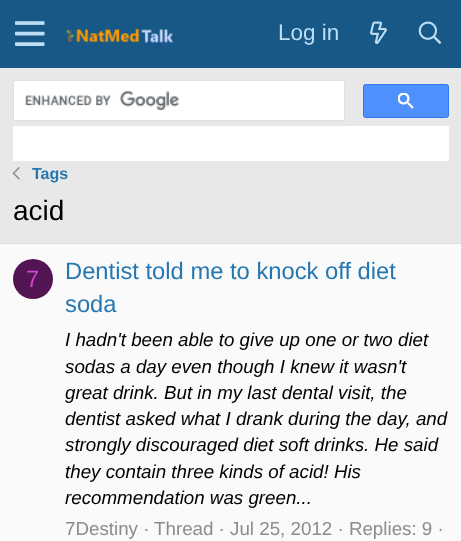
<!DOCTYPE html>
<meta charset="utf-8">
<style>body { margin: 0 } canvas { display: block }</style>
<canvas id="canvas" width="461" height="541"></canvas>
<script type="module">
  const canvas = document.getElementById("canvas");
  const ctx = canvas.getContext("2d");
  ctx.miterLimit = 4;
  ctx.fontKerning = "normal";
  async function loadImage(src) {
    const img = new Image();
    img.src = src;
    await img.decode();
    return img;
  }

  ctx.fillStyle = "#e8e8e8";
  ctx.fillRect(0, 0, 461, 541);
  ctx.fillStyle = "#185886";
  ctx.fillRect(0, 0, 461, 68);
  ctx.drawImage(await loadImage("img1.png"), 15, 21, 30, 25);
  ctx.drawImage(await loadImage("img2.png"), 66, 28, 108, 17);
  ctx.font = "22.5px Liberation Sans";
  ctx.fillStyle = "#bcdef5";
  ctx.fillText("Log in", 278, 40);
  ctx.drawImage(await loadImage("img3.png"), 370, 21, 17, 23);
  ctx.drawImage(await loadImage("img4.png"), 418, 21, 24, 23);
  ctx.fillStyle = "#ffffff";
  ctx.beginPath();
  ctx.rect(13.5, 80.5, 331, 40);
  ctx.fill();
  ctx.strokeStyle = "#dfe1e5";
  ctx.stroke();
  ctx.drawImage(await loadImage("img5.png"), 25, 91, 154, 19);
  ctx.fillStyle = "#4d90fe";
  ctx.beginPath();
  ctx.roundRect(363.5, 84.5, 85, 33, 2);
  ctx.fill();
  ctx.strokeStyle = "#3079ed";
  ctx.stroke();
  ctx.drawImage(await loadImage("img6.png"), 398, 93, 16, 16);
  ctx.fillStyle = "#ffffff";
  ctx.fillRect(13, 126, 436, 35);
  ctx.drawImage(await loadImage("img7.png"), 12, 167, 8, 13);
  ctx.font = "bold 16px Liberation Sans";
  ctx.fillStyle = "#2577b1";
  ctx.fillText("Tags", 32, 179);
  ctx.font = "28px Liberation Sans";
  ctx.fillStyle = "#000000";
  ctx.fillText("acid", 13, 220);
  ctx.fillStyle = "#fafafa";
  ctx.fillRect(0, 244, 461, 297);
  ctx.fillStyle = "#dfdfdf";
  ctx.fillRect(0, 243, 461, 1);
  ctx.fillStyle = "#521452";
  ctx.beginPath();
  ctx.arc(33, 279, 20, 0, Math.PI * 2);
  ctx.fill();
  ctx.font = "23.75px Liberation Sans";
  ctx.fillStyle = "#d147d1";
  ctx.fillText("7", 26, 287);
  ctx.fillStyle = "#2577b1";
  ctx.fillText("Dentist told me to knock off diet", 65, 279);
  ctx.fillText("soda", 65, 312);
  ctx.font = "italic 18.75px Liberation Sans";
  ctx.fillStyle = "#000000";
  ctx.fillText("I hadn't been able to give up one or two diet", 65, 346);
  ctx.fillText("sodas a day even though I knew it wasn't", 65, 373);
  ctx.fillText("great drink. But in my last dental visit, the", 65, 399);
  ctx.fillText("dentist asked what I drank during the day, and", 65, 425);
  ctx.fillText("strongly discouraged diet soft drinks. He said", 65, 451);
  ctx.fillText("they contain three kinds of acid! His", 65, 478);
  ctx.fillText("recommendation was green...", 65, 504);
  ctx.font = "18.75px Liberation Sans";
  ctx.fillStyle = "#8c8c8c";
  ctx.fillText("7Destiny ·", 65, 535);
  ctx.fillText("Thread · Jul 25, 2012 · Replies: 9 ·", 154, 535);
</script>
